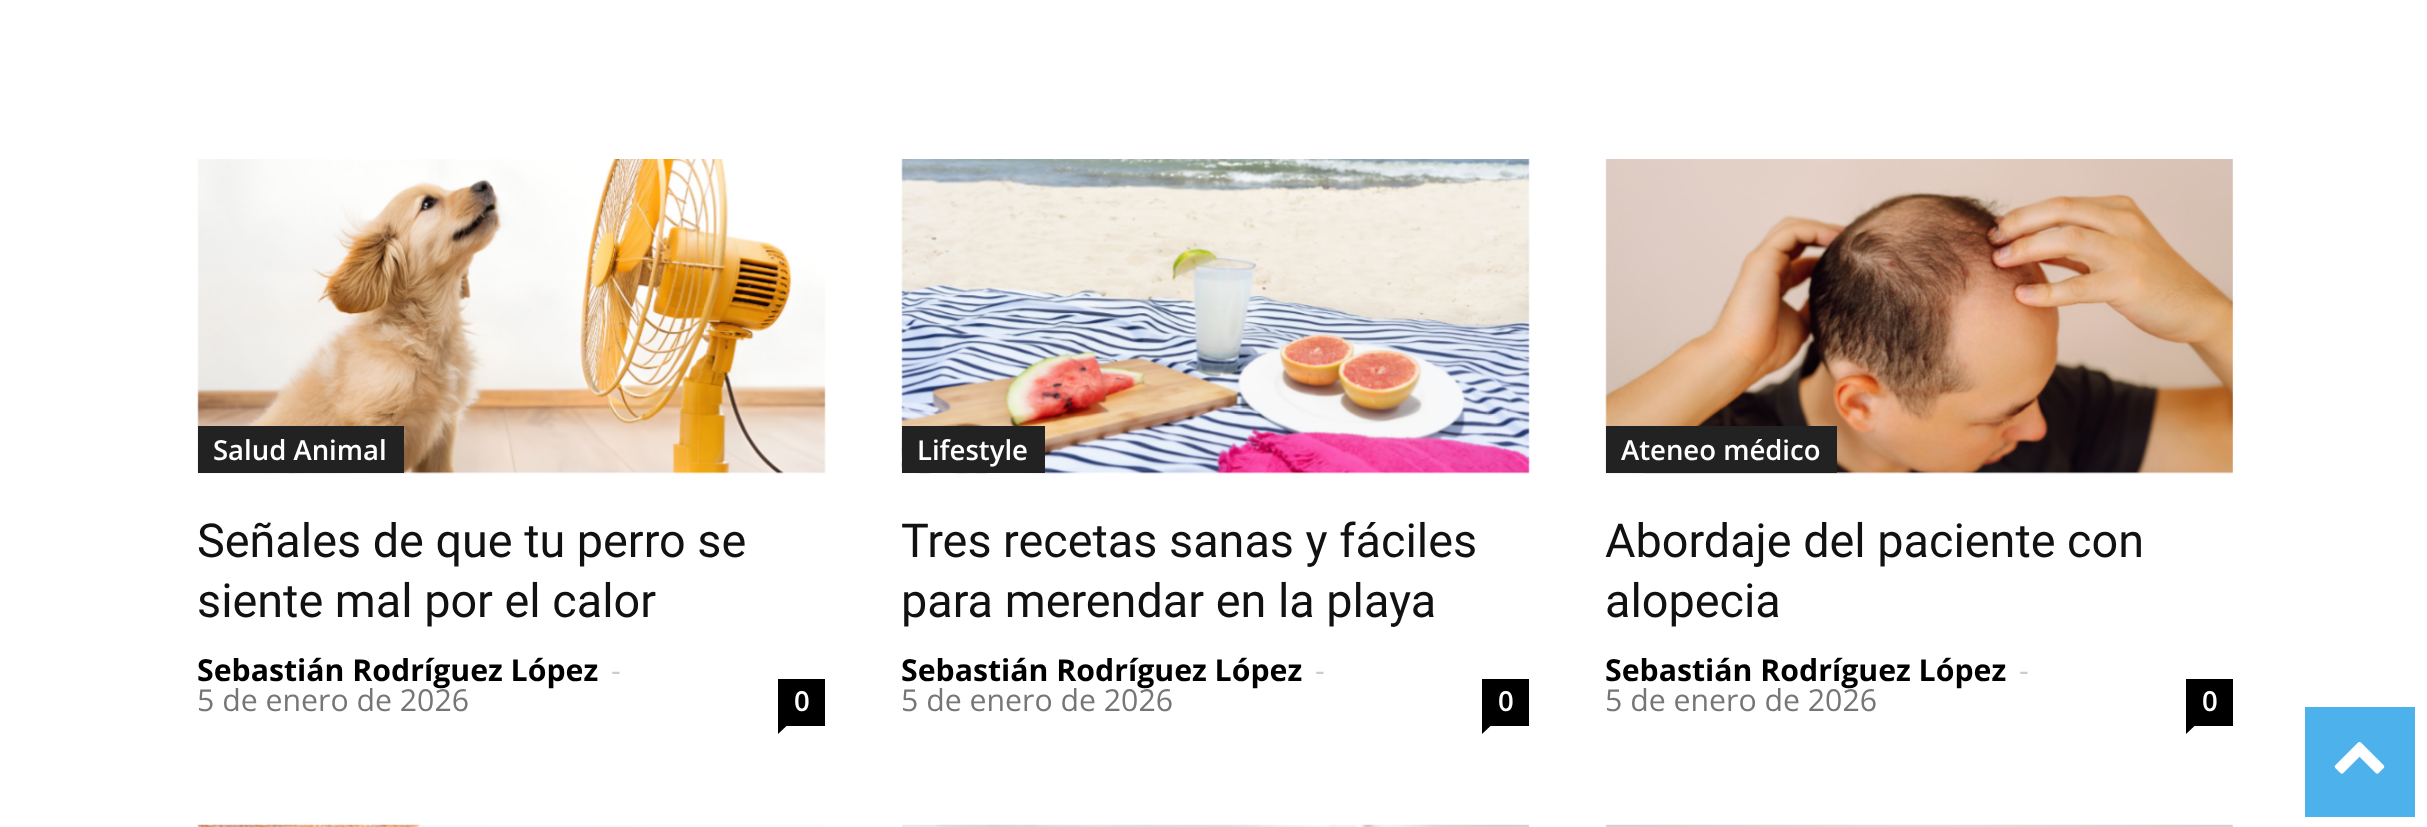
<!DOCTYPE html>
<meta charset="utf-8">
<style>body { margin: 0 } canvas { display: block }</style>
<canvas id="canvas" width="2427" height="827"></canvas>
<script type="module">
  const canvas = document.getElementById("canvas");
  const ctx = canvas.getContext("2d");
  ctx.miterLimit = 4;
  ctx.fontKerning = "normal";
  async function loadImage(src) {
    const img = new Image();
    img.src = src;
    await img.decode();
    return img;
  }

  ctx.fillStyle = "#ffffff";
  ctx.fillRect(0, 0, 2427, 827);
  ctx.drawImage(await loadImage("img1.png"), 197, 159, 629, 315);
  ctx.fillStyle = "#222222";
  ctx.fillRect(198, 426, 206, 47);
  ctx.font = "600 27.5px Open Sans";
  ctx.fillStyle = "#ffffff";
  ctx.fillText("Salud Animal", 213, 460);
  ctx.font = "46.75px Roboto";
  ctx.fillStyle = "#111111";
  ctx.fillText("Señales de que tu perro se", 197, 557);
  ctx.fillText("siente mal por el calor", 197, 617);
  ctx.font = "bold 30.25px Open Sans";
  ctx.fillStyle = "#000000";
  ctx.fillText("Sebastián Rodríguez López", 197, 681);
  ctx.font = "30.25px Open Sans";
  ctx.fillStyle = "#cccccc";
  ctx.fillText("-", 611, 681);
  ctx.fillStyle = "#767676";
  ctx.fillText("5 de enero de 2026", 197, 711);
  ctx.fillStyle = "#000000";
  ctx.fillRect(778, 679, 47, 47);
  ctx.font = "600 27.5px Open Sans";
  ctx.fillStyle = "#ffffff";
  ctx.fillText("0", 794, 711);
  ctx.fillStyle = "#000000";
  ctx.beginPath();
  ctx.moveTo(778, 726);
  ctx.lineTo(786.5, 726);
  ctx.lineTo(778, 734);
  ctx.closePath();
  ctx.fill();
  ctx.drawImage(await loadImage("img2.png"), 901, 159, 629, 315);
  ctx.fillStyle = "#222222";
  ctx.fillRect(902, 426, 143, 47);
  ctx.fillStyle = "#ffffff";
  ctx.fillText("Lifestyle", 917, 460);
  ctx.font = "46.75px Roboto";
  ctx.fillStyle = "#111111";
  ctx.fillText("Tres recetas sanas y fáciles", 901, 557);
  ctx.fillText("para merendar en la playa", 901, 617);
  ctx.font = "bold 30.25px Open Sans";
  ctx.fillStyle = "#000000";
  ctx.fillText("Sebastián Rodríguez López", 901, 681);
  ctx.font = "30.25px Open Sans";
  ctx.fillStyle = "#cccccc";
  ctx.fillText("-", 1315, 681);
  ctx.fillStyle = "#767676";
  ctx.fillText("5 de enero de 2026", 901, 711);
  ctx.fillStyle = "#000000";
  ctx.fillRect(1482, 679, 47, 47);
  ctx.font = "600 27.5px Open Sans";
  ctx.fillStyle = "#ffffff";
  ctx.fillText("0", 1498, 711);
  ctx.fillStyle = "#000000";
  ctx.beginPath();
  ctx.moveTo(1482, 726);
  ctx.lineTo(1490.5, 726);
  ctx.lineTo(1482, 734);
  ctx.closePath();
  ctx.fill();
  ctx.drawImage(await loadImage("img3.png"), 1605, 159, 628, 315);
  ctx.fillStyle = "#222222";
  ctx.fillRect(1606, 426, 231, 47);
  ctx.fillStyle = "#ffffff";
  ctx.fillText("Ateneo médico", 1621, 460);
  ctx.font = "46.75px Roboto";
  ctx.fillStyle = "#111111";
  ctx.fillText("Abordaje del paciente con", 1605, 557);
  ctx.fillText("alopecia", 1605, 617);
  ctx.font = "bold 30.25px Open Sans";
  ctx.fillStyle = "#000000";
  ctx.fillText("Sebastián Rodríguez López", 1605, 681);
  ctx.font = "30.25px Open Sans";
  ctx.fillStyle = "#cccccc";
  ctx.fillText("-", 2019, 681);
  ctx.fillStyle = "#767676";
  ctx.fillText("5 de enero de 2026", 1605, 711);
  ctx.fillStyle = "#000000";
  ctx.fillRect(2186, 679, 47, 47);
  ctx.font = "600 27.5px Open Sans";
  ctx.fillStyle = "#ffffff";
  ctx.fillText("0", 2202, 711);
  ctx.fillStyle = "#000000";
  ctx.beginPath();
  ctx.moveTo(2186, 726);
  ctx.lineTo(2194.5, 726);
  ctx.lineTo(2186, 734);
  ctx.closePath();
  ctx.fill();
  ctx.drawImage(await loadImage("img4.png"), 197, 824, 626, 3);
  ctx.drawImage(await loadImage("img5.png"), 901, 824, 629, 3);
  ctx.drawImage(await loadImage("img6.png"), 1605, 824, 628, 3);
  ctx.fillStyle = "#4db2ec";
  ctx.fillRect(2305, 707, 110, 110);
  ctx.drawImage(await loadImage("img7.png"), 2334, 742, 51, 32);
</script>
